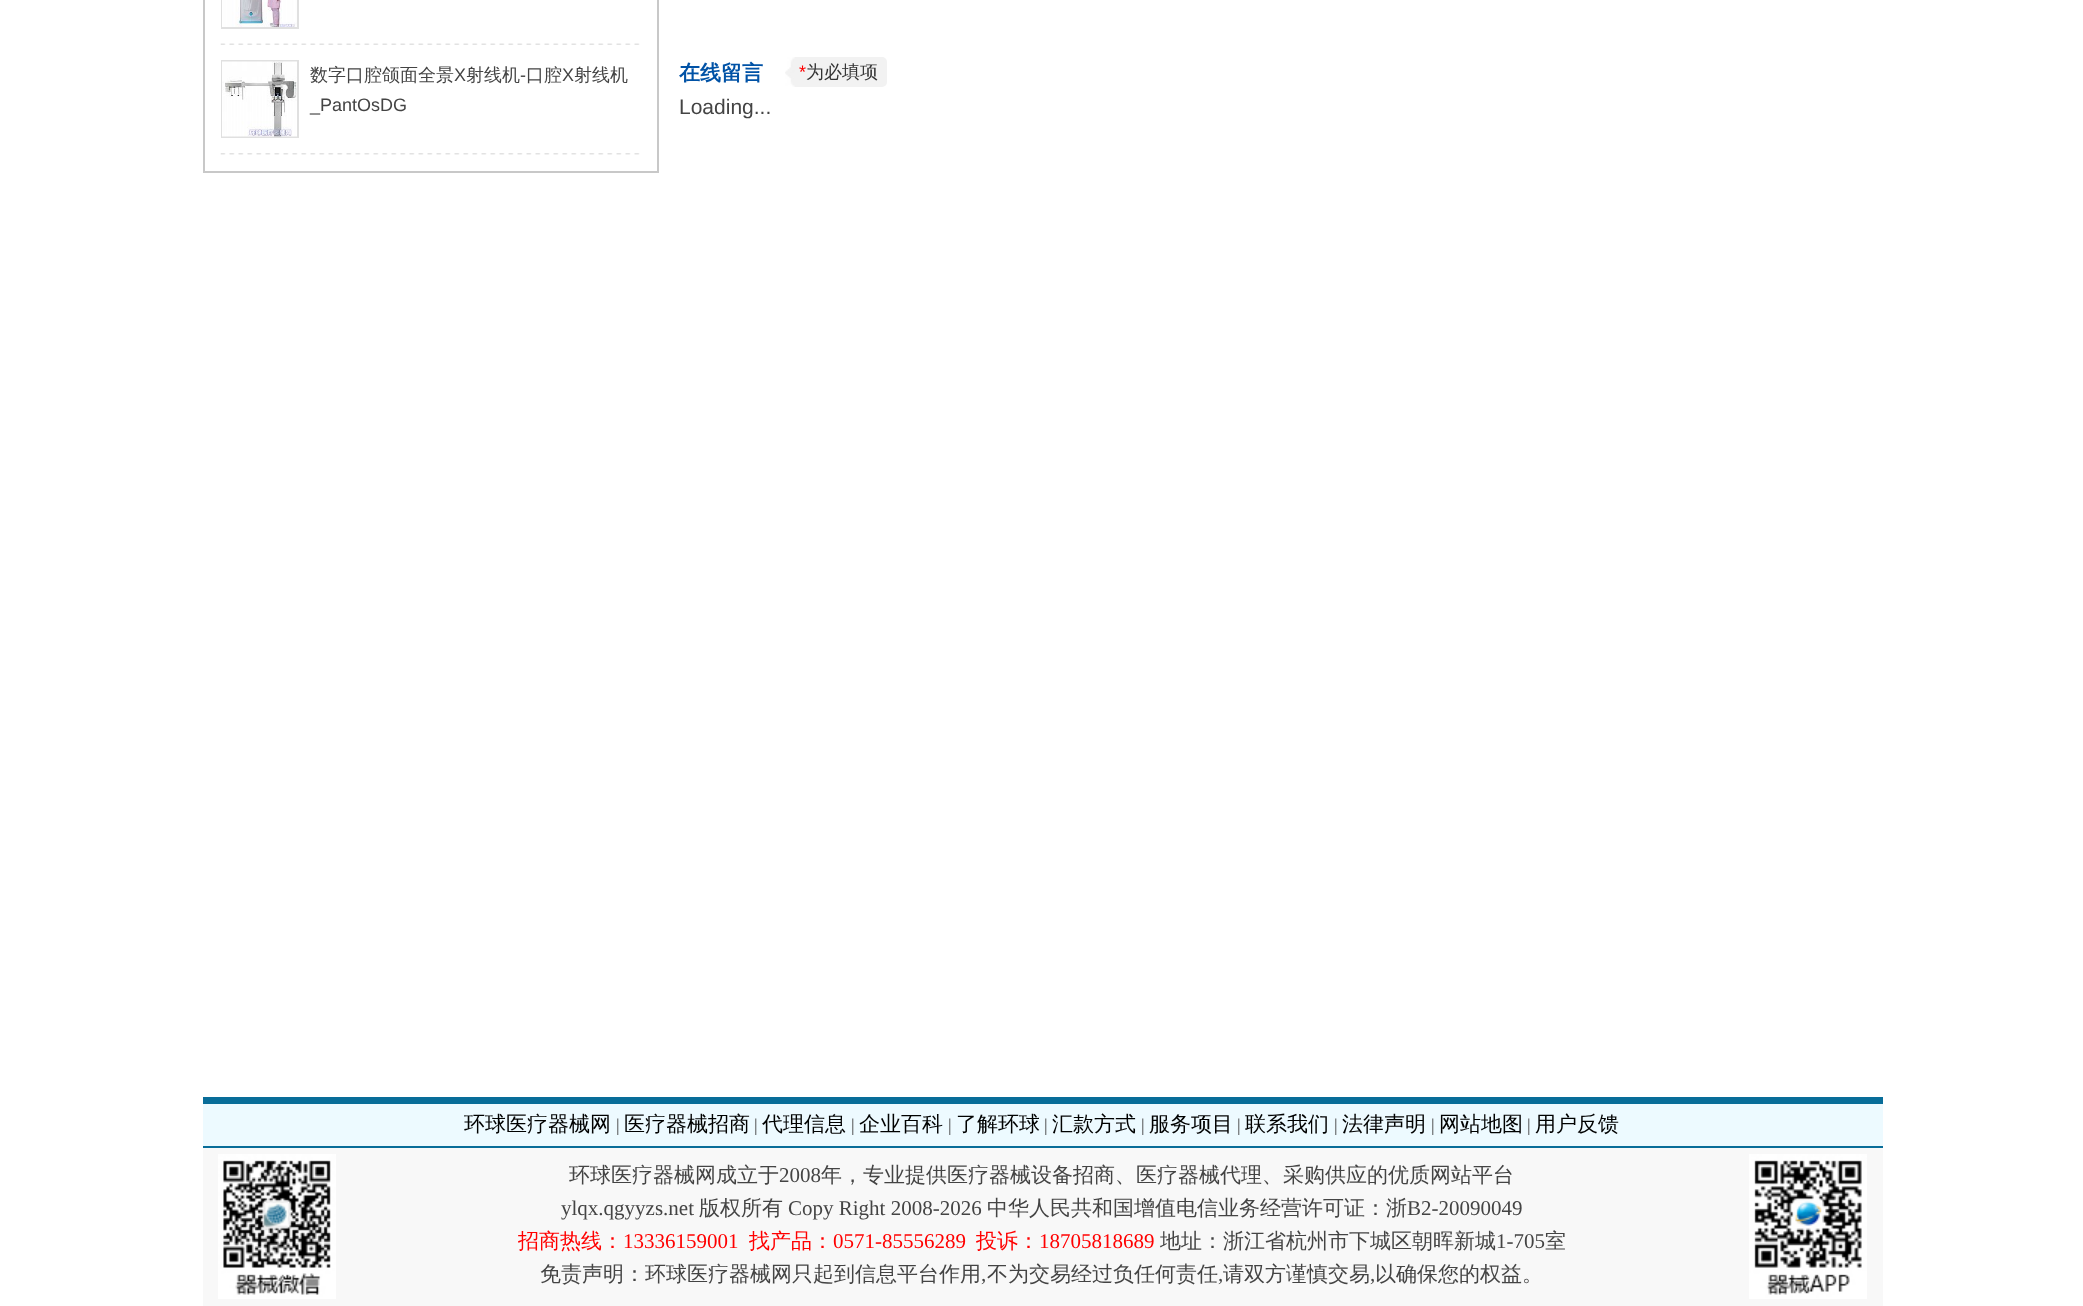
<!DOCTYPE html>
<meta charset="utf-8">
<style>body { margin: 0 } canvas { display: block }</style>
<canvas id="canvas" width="2083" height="1306"></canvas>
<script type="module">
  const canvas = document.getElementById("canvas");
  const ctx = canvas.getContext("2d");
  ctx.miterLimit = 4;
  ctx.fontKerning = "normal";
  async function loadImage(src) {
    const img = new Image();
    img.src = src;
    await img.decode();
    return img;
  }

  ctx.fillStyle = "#ffffff";
  ctx.fillRect(0, 0, 2083, 1306);
  ctx.strokeStyle = "#c8c8c8";
  ctx.lineWidth = 2;
  ctx.strokeRect(204, -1, 454, 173);
  ctx.drawImage(await loadImage("img1.png"), 220, 43, 420, 2);
  ctx.strokeStyle = "#e0e0e0";
  ctx.strokeRect(222, -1, 76, 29);
  ctx.drawImage(await loadImage("img2.png"), 222, 0, 75, 27);
  ctx.drawImage(await loadImage("img3.png"), 220, 153, 420, 2);
  ctx.strokeRect(222, 61, 76, 76);
  ctx.drawImage(await loadImage("img4.png"), 222, 61, 75, 76);
  ctx.font = "500 18px WenQuanYi Zen Hei";
  ctx.fillStyle = "#444444";
  ctx.fillText("数字口腔颌面全景", 310, 81);
  ctx.font = "18px Liberation Sans";
  ctx.fillText("X", 454, 81);
  ctx.font = "500 18px WenQuanYi Zen Hei";
  ctx.fillText("射线机", 466, 81);
  ctx.font = "18px Liberation Sans";
  ctx.fillText("-", 520, 81);
  ctx.font = "500 18px WenQuanYi Zen Hei";
  ctx.fillText("口腔", 526, 81);
  ctx.font = "18px Liberation Sans";
  ctx.fillText("X", 562, 81);
  ctx.font = "500 18px WenQuanYi Zen Hei";
  ctx.fillText("射线机", 574, 81);
  ctx.font = "18px Liberation Sans";
  ctx.fillText("_PantOsDG", 310, 111);
  ctx.font = "bold 21px WenQuanYi Zen Hei";
  ctx.fillStyle = "#0052a6";
  ctx.fillText("在线留言", 679, 80);
  ctx.fillStyle = "#f2f2f2";
  ctx.beginPath();
  ctx.roundRect(785, 57, 102, 30, [0, 5, 5, 0]);
  ctx.fill();
  ctx.drawImage(await loadImage("img5.png"), 785, 57, 10, 30);
  ctx.font = "18px Liberation Sans";
  ctx.fillStyle = "#ff0000";
  ctx.fillText("*", 799, 78);
  ctx.font = "500 18px WenQuanYi Zen Hei";
  ctx.fillStyle = "#333333";
  ctx.fillText("为必填项", 806, 78);
  ctx.font = "21px Liberation Sans";
  ctx.fillStyle = "#444444";
  ctx.fillText("Loading...", 679, 114);
  ctx.fillStyle = "#edfaff";
  ctx.fillRect(203, 1104, 1680, 42);
  ctx.fillStyle = "#086d99";
  ctx.fillRect(203, 1097, 1680, 7);
  ctx.fillRect(203, 1146, 1680, 2);
  ctx.font = "500 21px WenQuanYi Zen Hei";
  ctx.fillStyle = "#000100";
  ctx.fillText("环球医疗器械网", 464, 1131);
  ctx.font = "18px Liberation Serif";
  ctx.fillStyle = "#444444";
  ctx.fillText("|", 616, 1131);
  ctx.font = "500 21px WenQuanYi Zen Hei";
  ctx.fillStyle = "#000100";
  ctx.fillText("医疗器械招商", 624, 1131);
  ctx.font = "18px Liberation Serif";
  ctx.fillStyle = "#444444";
  ctx.fillText("|", 754, 1131);
  ctx.font = "500 21px WenQuanYi Zen Hei";
  ctx.fillStyle = "#000100";
  ctx.fillText("代理信息", 762, 1131);
  ctx.font = "18px Liberation Serif";
  ctx.fillStyle = "#444444";
  ctx.fillText("|", 851, 1131);
  ctx.font = "500 21px WenQuanYi Zen Hei";
  ctx.fillStyle = "#000100";
  ctx.fillText("企业百科", 859, 1131);
  ctx.font = "18px Liberation Serif";
  ctx.fillStyle = "#444444";
  ctx.fillText("|", 948, 1131);
  ctx.font = "500 21px WenQuanYi Zen Hei";
  ctx.fillStyle = "#000100";
  ctx.fillText("了解环球", 956, 1131);
  ctx.font = "18px Liberation Serif";
  ctx.fillStyle = "#444444";
  ctx.fillText("|", 1044, 1131);
  ctx.font = "500 21px WenQuanYi Zen Hei";
  ctx.fillStyle = "#000100";
  ctx.fillText("汇款方式", 1052, 1131);
  ctx.font = "18px Liberation Serif";
  ctx.fillStyle = "#444444";
  ctx.fillText("|", 1141, 1131);
  ctx.font = "500 21px WenQuanYi Zen Hei";
  ctx.fillStyle = "#000100";
  ctx.fillText("服务项目", 1149, 1131);
  ctx.font = "18px Liberation Serif";
  ctx.fillStyle = "#444444";
  ctx.fillText("|", 1237, 1131);
  ctx.font = "500 21px WenQuanYi Zen Hei";
  ctx.fillStyle = "#000100";
  ctx.fillText("联系我们", 1245, 1131);
  ctx.font = "18px Liberation Serif";
  ctx.fillStyle = "#444444";
  ctx.fillText("|", 1334, 1131);
  ctx.font = "500 21px WenQuanYi Zen Hei";
  ctx.fillStyle = "#000100";
  ctx.fillText("法律声明", 1342, 1131);
  ctx.font = "18px Liberation Serif";
  ctx.fillStyle = "#444444";
  ctx.fillText("|", 1431, 1131);
  ctx.font = "500 21px WenQuanYi Zen Hei";
  ctx.fillStyle = "#000100";
  ctx.fillText("网站地图", 1439, 1131);
  ctx.font = "18px Liberation Serif";
  ctx.fillStyle = "#444444";
  ctx.fillText("|", 1527, 1131);
  ctx.font = "500 21px WenQuanYi Zen Hei";
  ctx.fillStyle = "#000100";
  ctx.fillText("用户反馈", 1535, 1131);
  ctx.fillStyle = "#f8f8f8";
  ctx.fillRect(203, 1148, 1680, 158);
  ctx.drawImage(await loadImage("img6.png"), 218, 1154, 118, 145);
  ctx.fillStyle = "#444444";
  ctx.fillText("环球医疗器械网成立于", 569, 1182);
  ctx.font = "21px Liberation Serif";
  ctx.fillText("2008", 779, 1182);
  ctx.font = "500 21px WenQuanYi Zen Hei";
  ctx.fillText("年，专业提供医疗器械设备招商、医疗器械代理、采购供应的优质网站平台", 821, 1182);
  ctx.drawImage(await loadImage("img7.png"), 1749, 1154, 118, 145);
  ctx.font = "21px Liberation Serif";
  ctx.fillText("ylqx.qgyyzs.net", 561, 1215);
  ctx.font = "500 21px WenQuanYi Zen Hei";
  ctx.fillText("版权所有", 699, 1215);
  ctx.font = "21px Liberation Serif";
  ctx.fillText("Copy Right 2008-2026", 788, 1215);
  ctx.font = "500 21px WenQuanYi Zen Hei";
  ctx.fillText("中华人民共和国增值电信业务经营许可证：浙", 987, 1215);
  ctx.font = "21px Liberation Serif";
  ctx.fillText("B2-20090049", 1407, 1215);
  ctx.font = "500 21px WenQuanYi Zen Hei";
  ctx.fillStyle = "#ff0000";
  ctx.fillText("招商热线：", 518, 1248);
  ctx.font = "21px Liberation Serif";
  ctx.fillText("13336159001", 623, 1248);
  ctx.font = "500 21px WenQuanYi Zen Hei";
  ctx.fillText("找产品：", 749, 1248);
  ctx.font = "21px Liberation Serif";
  ctx.fillText("0571-85556289", 833, 1248);
  ctx.font = "500 21px WenQuanYi Zen Hei";
  ctx.fillText("投诉：", 976, 1248);
  ctx.font = "21px Liberation Serif";
  ctx.fillText("18705818689", 1039, 1248);
  ctx.font = "500 21px WenQuanYi Zen Hei";
  ctx.fillStyle = "#444444";
  ctx.fillText("地址：浙江省杭州市下城区朝晖新城", 1160, 1248);
  ctx.font = "21px Liberation Serif";
  ctx.fillText("1-705", 1496, 1248);
  ctx.font = "500 21px WenQuanYi Zen Hei";
  ctx.fillText("室", 1545, 1248);
  ctx.fillText("免责声明：环球医疗器械网只起到信息平台作用", 540, 1281);
  ctx.font = "21px Liberation Serif";
  ctx.fillText(",", 981, 1281);
  ctx.font = "500 21px WenQuanYi Zen Hei";
  ctx.fillText("不为交易经过负任何责任", 987, 1281);
  ctx.font = "21px Liberation Serif";
  ctx.fillText(",", 1218, 1281);
  ctx.font = "500 21px WenQuanYi Zen Hei";
  ctx.fillText("请双方谨慎交易", 1223, 1281);
  ctx.font = "21px Liberation Serif";
  ctx.fillText(",", 1370, 1281);
  ctx.font = "500 21px WenQuanYi Zen Hei";
  ctx.fillText("以确保您的权益。", 1375, 1281);
</script>
